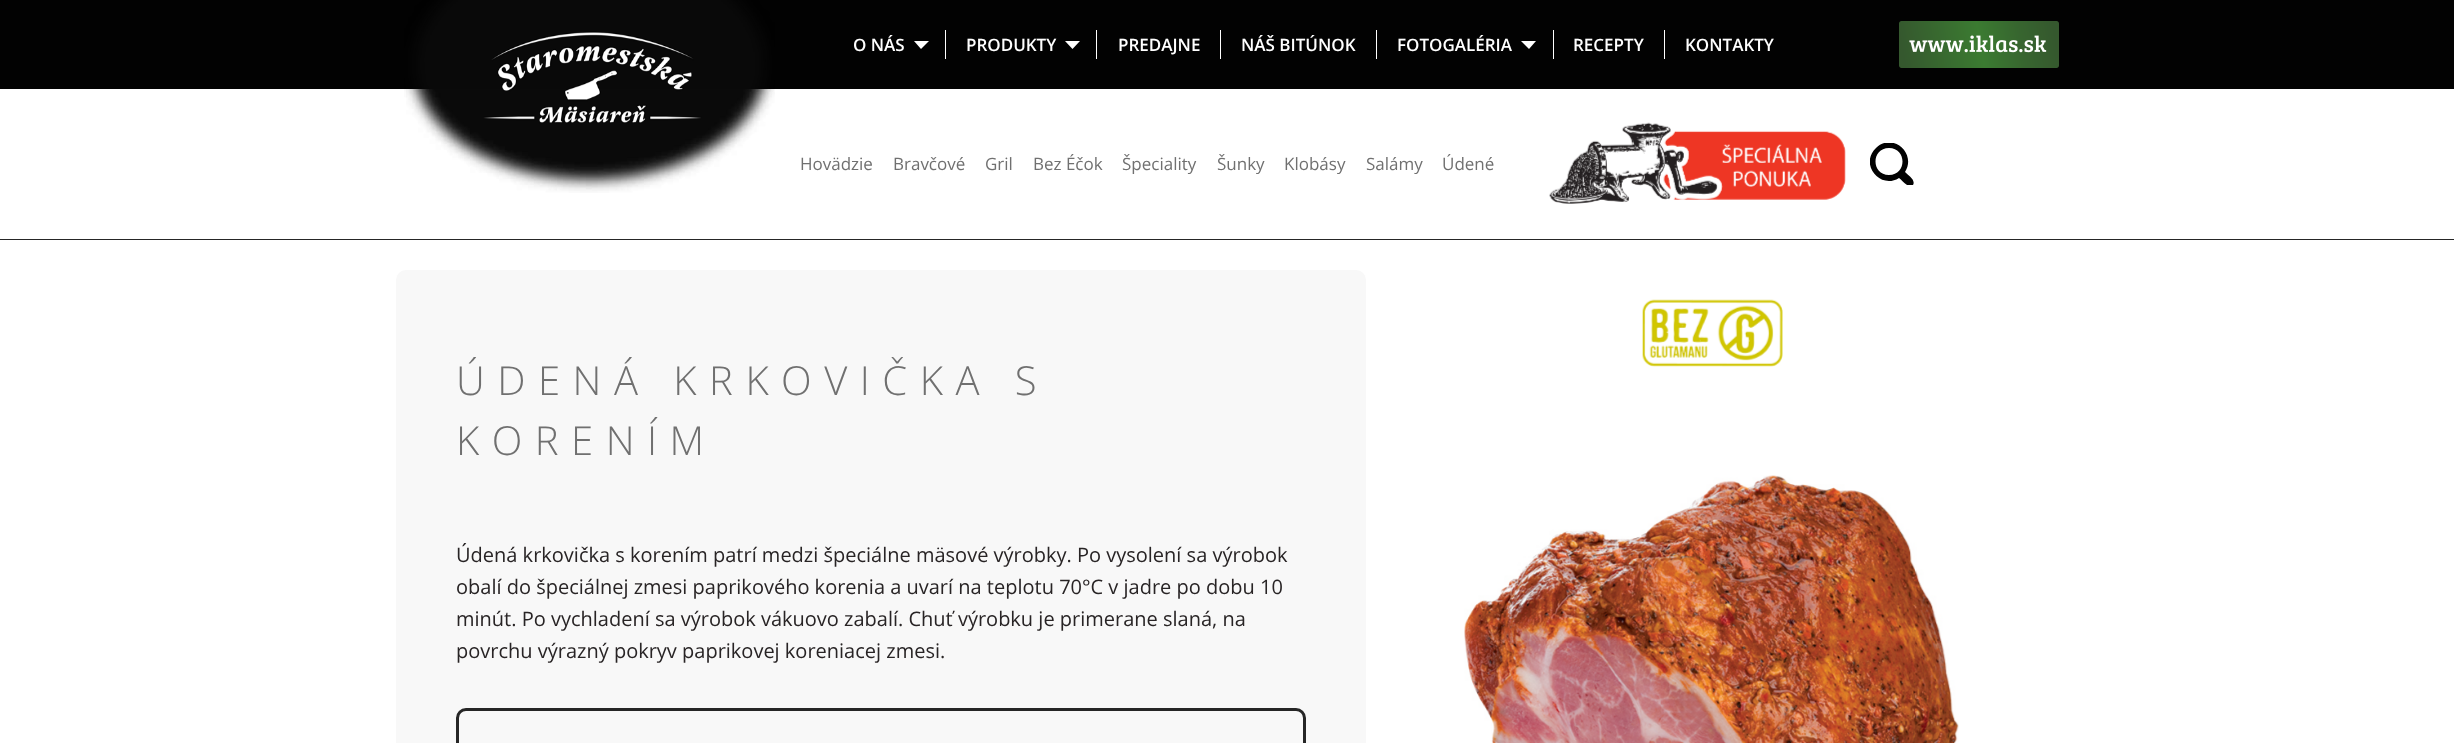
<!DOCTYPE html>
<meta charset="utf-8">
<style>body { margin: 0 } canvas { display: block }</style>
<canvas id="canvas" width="2454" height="743"></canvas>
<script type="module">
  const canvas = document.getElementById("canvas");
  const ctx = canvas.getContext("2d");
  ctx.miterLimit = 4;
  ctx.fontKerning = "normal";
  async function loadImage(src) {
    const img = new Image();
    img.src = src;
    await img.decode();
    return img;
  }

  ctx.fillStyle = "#ffffff";
  ctx.fillRect(0, 0, 2454, 743);
  ctx.fillStyle = "#262626";
  ctx.fillRect(0, 239, 2454, 1);
  ctx.fillStyle = "#020202";
  ctx.fillRect(0, 0, 2454, 89);
  ctx.drawImage(await loadImage("img1.png"), 404, 0, 371, 193);
  ctx.fillStyle = "#ffffff";
  ctx.fillRect(945, 30, 1, 29);
  ctx.font = "600 17px Open Sans";
  ctx.fillText("O NÁS", 853, 51);
  ctx.beginPath();
  ctx.moveTo(914, 41);
  ctx.lineTo(929, 41);
  ctx.lineTo(921, 49);
  ctx.closePath();
  ctx.fill();
  ctx.fillRect(1096, 30, 1, 29);
  ctx.fillText("PRODUKTY", 966, 51);
  ctx.beginPath();
  ctx.moveTo(1065, 41);
  ctx.lineTo(1080, 41);
  ctx.lineTo(1072.5, 49);
  ctx.closePath();
  ctx.fill();
  ctx.fillRect(1220, 30, 1, 29);
  ctx.fillText("PREDAJNE", 1118, 51);
  ctx.fillRect(1376, 30, 1, 29);
  ctx.fillText("NÁŠ BITÚNOK", 1241, 51);
  ctx.fillRect(1553, 30, 1, 29);
  ctx.fillText("FOTOGALÉRIA", 1397, 51);
  ctx.beginPath();
  ctx.moveTo(1521, 41);
  ctx.lineTo(1536, 41);
  ctx.lineTo(1529, 49);
  ctx.closePath();
  ctx.fill();
  ctx.fillRect(1664, 30, 1, 29);
  ctx.fillText("RECEPTY", 1573, 51);
  ctx.fillText("KONTAKTY", 1685, 51);
  ctx.drawImage(await loadImage("img2.png"), 1899, 21, 160, 47);
  ctx.font = "17px Open Sans";
  ctx.fillStyle = "#707070";
  ctx.fillText("Hovädzie", 800, 170);
  ctx.fillText("Bravčové", 893, 170);
  ctx.fillText("Gril", 985, 170);
  ctx.fillText("Bez Éčok", 1033, 170);
  ctx.fillText("Špeciality", 1122, 170);
  ctx.fillText("Šunky", 1217, 170);
  ctx.fillText("Klobásy", 1284, 170);
  ctx.fillText("Salámy", 1366, 170);
  ctx.fillText("Údené", 1442, 170);
  ctx.drawImage(await loadImage("img3.png"), 1549, 122, 297, 82);
  ctx.save();
  ctx.beginPath();
  ctx.rect(1870, 143, 44, 42);
  ctx.clip();
  ctx.fillStyle = "#020202";
  ctx.beginPath();
  ctx.moveTo(1913, 185);
  ctx.bezierCurveTo(1908, 189, 1902, 180, 1899, 178);
  ctx.bezierCurveTo(1880, 190, 1859, 164, 1876, 148);
  ctx.bezierCurveTo(1892, 132, 1917, 153, 1905, 172);
  ctx.bezierCurveTo(1908, 175, 1916, 180, 1913, 185);
  ctx.closePath();
  ctx.moveTo(1889, 148);
  ctx.bezierCurveTo(1871, 148, 1871, 175, 1889, 175);
  ctx.bezierCurveTo(1907, 175, 1907, 148, 1889, 148);
  ctx.closePath();
  ctx.fill();
  ctx.restore();
  ctx.fillStyle = "#f8f8f8";
  ctx.beginPath();
  ctx.roundRect(396, 270, 970, 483, 10);
  ctx.fill();
  ctx.letterSpacing = "12.5px";
  ctx.font = "300 40px Open Sans";
  ctx.fillStyle = "#707070";
  ctx.fillText("ÚDENÁ KRKOVIČKA S", 456, 395);
  ctx.fillText("KORENÍM", 456, 455);
  ctx.letterSpacing = "0px";
  ctx.font = "20px Open Sans";
  ctx.fillStyle = "#282425";
  ctx.fillText("Údená krkovička s korením patrí medzi špeciálne mäsové výrobky. Po vysolení sa výrobok", 456, 562);
  ctx.fillText("obalí do špeciálnej zmesi paprikového korenia a uvarí na teplotu 70°C v jadre po dobu 10", 456, 594);
  ctx.fillText("minút. Po vychladení sa výrobok vákuovo zabalí. Chuť výrobku je primerane slaná, na", 456, 626);
  ctx.fillText("povrchu výrazný pokryv paprikovej koreniacej zmesi.", 456, 658);
  ctx.beginPath();
  ctx.roundRect(457.5, 709.5, 847, 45, 8.5);
  ctx.strokeStyle = "#262626";
  ctx.lineWidth = 3;
  ctx.stroke();
  ctx.drawImage(await loadImage("img4.png"), 1642, 299, 141, 68);
  ctx.drawImage(await loadImage("img5.png"), 1464, 475, 495, 268);
</script>
